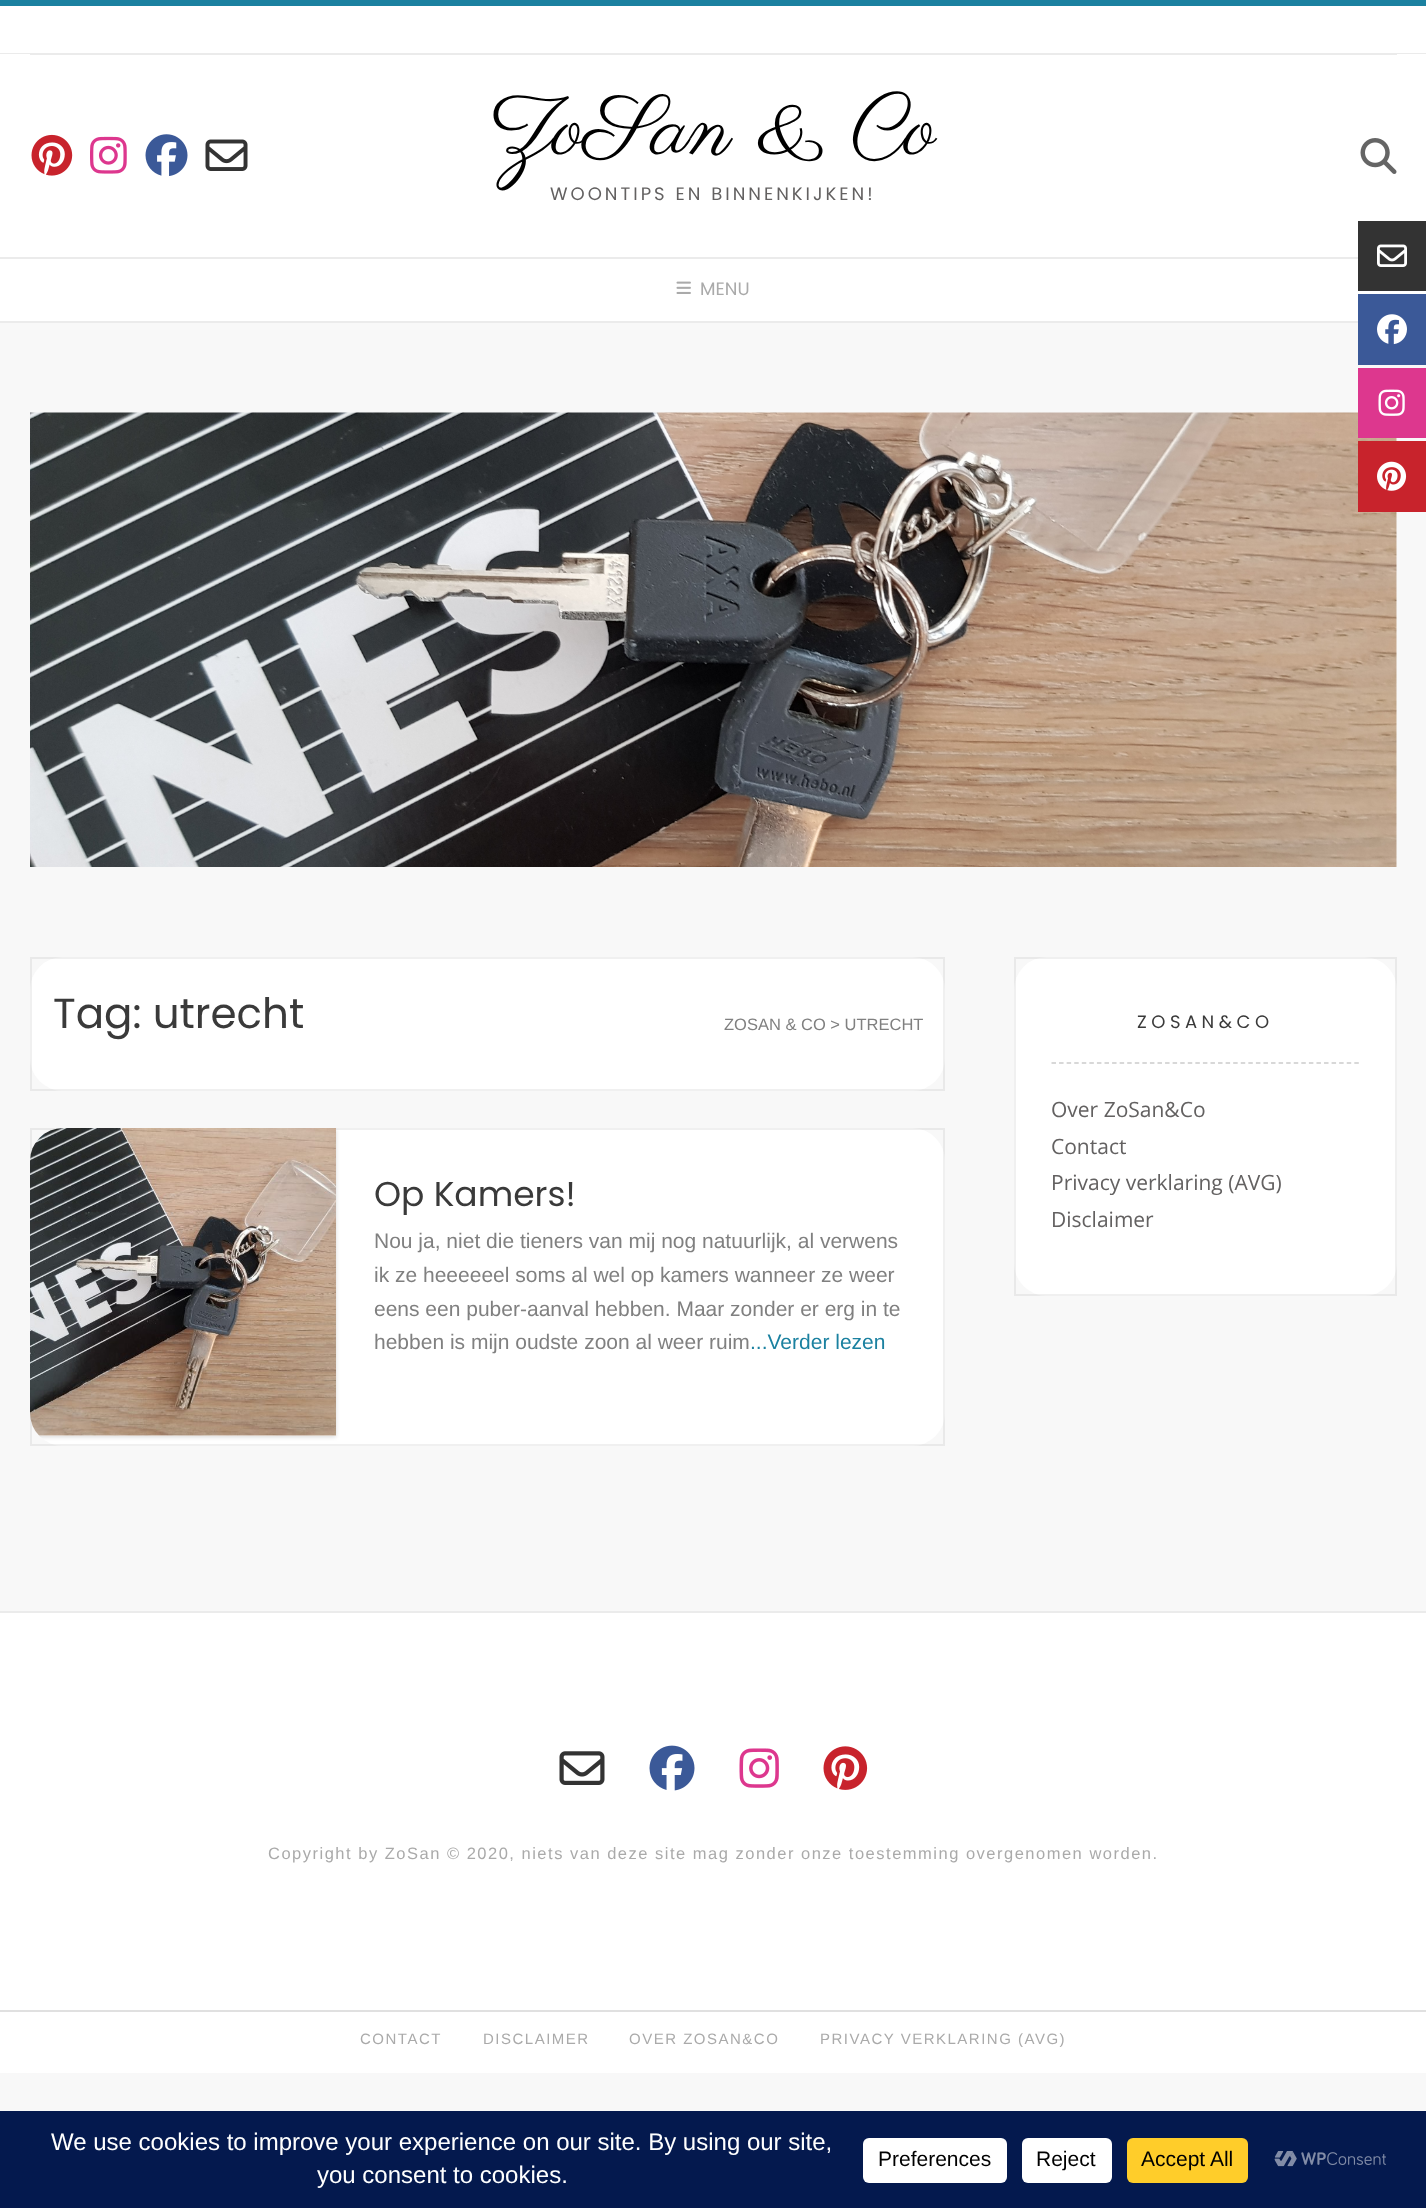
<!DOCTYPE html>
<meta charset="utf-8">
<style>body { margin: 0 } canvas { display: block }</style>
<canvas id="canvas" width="1426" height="2208"></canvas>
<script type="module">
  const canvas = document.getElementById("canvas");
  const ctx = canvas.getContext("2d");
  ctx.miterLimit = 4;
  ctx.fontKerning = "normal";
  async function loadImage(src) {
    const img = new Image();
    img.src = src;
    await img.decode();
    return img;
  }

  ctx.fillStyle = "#f8f8f8";
  ctx.fillRect(0, 0, 1426, 2208);
  ctx.fillStyle = "#1b81a0";
  ctx.fillRect(0, 0, 1426, 6);
  ctx.fillStyle = "#ffffff";
  ctx.fillRect(0, 6, 1426, 47);
  ctx.fillStyle = "#ebebeb";
  ctx.fillRect(0, 53, 1426, 1);
  ctx.fillStyle = "#ffffff";
  ctx.fillRect(0, 54, 1426, 203);
  ctx.fillStyle = "#ebebeb";
  ctx.fillRect(30, 54, 1367, 1);
  ctx.drawImage(await loadImage("img1.png"), 31, 134, 42, 42);
  ctx.drawImage(await loadImage("img2.png"), 90, 136, 37, 38);
  ctx.drawImage(await loadImage("img3.png"), 145, 134, 43, 42);
  ctx.drawImage(await loadImage("img4.png"), 205, 139, 43, 32);
  ctx.font = "84px Parisienne";
  ctx.fillStyle = "#000000";
  ctx.fillText("ZoSan & Co", 491, 153);
  ctx.letterSpacing = "3px";
  ctx.font = "18px Poppins";
  ctx.fillStyle = "#636161";
  ctx.fillText("WOONTIPS EN BINNENKIJKEN!", 550, 200);
  ctx.drawImage(await loadImage("img5.png"), 1360, 138, 37, 36);
  ctx.fillStyle = "#ffffff";
  ctx.fillRect(0, 259, 1426, 62);
  ctx.fillStyle = "#ebebeb";
  ctx.fillRect(0, 257, 1358, 2);
  ctx.fillRect(0, 321, 1358, 2);
  ctx.drawImage(await loadImage("img6.png"), 676, 281, 15, 13);
  ctx.letterSpacing = "0px";
  ctx.fillStyle = "#aaaaaa";
  ctx.fillText("MENU", 700, 295);
  ctx.drawImage(await loadImage("img7.png"), 30, 412, 1367, 455);
  ctx.fillStyle = "#ffffff";
  ctx.beginPath();
  ctx.roundRect(30, 957, 915, 134, 33);
  ctx.fill();
  ctx.strokeStyle = "rgba(0, 0, 0, 0.06)";
  ctx.lineWidth = 2;
  ctx.strokeRect(31, 958, 913, 132);
  ctx.font = "42px Poppins";
  ctx.fillStyle = "#3a3a3a";
  ctx.fillText("Tag: utrecht", 53, 1028);
  ctx.font = "16.5px Liberation Sans";
  ctx.fillStyle = "#808080";
  ctx.fillText("ZOSAN & CO > UTRECHT", 724, 1030);
  ctx.fillStyle = "#ffffff";
  ctx.beginPath();
  ctx.roundRect(30, 1128, 915, 318, 33);
  ctx.fill();
  ctx.strokeRect(31, 1129, 913, 316);
  ctx.drawImage(await loadImage("img8.png"), 30, 1128, 306, 308);
  ctx.save();
  ctx.beginPath();
  ctx.roundRect(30, 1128, 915, 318, 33);
  ctx.clip();
  ctx.beginPath();
  ctx.moveTo(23, 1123);
  ctx.lineTo(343, 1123);
  ctx.lineTo(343, 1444);
  ctx.lineTo(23, 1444);
  ctx.closePath();
  ctx.moveTo(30, 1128);
  ctx.lineTo(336, 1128);
  ctx.lineTo(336, 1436);
  ctx.lineTo(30, 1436);
  ctx.closePath();
  ctx.clip("evenodd");
  ctx.fillStyle = "rgba(0, 0, 0, 0.15)";
  ctx.filter = "blur(2px)";
  ctx.beginPath();
  ctx.rect(30, 1130, 306, 307);
  ctx.fill();
  ctx.filter = "none";
  ctx.restore();
  ctx.font = "34.5px Poppins";
  ctx.fillStyle = "#3a3a3a";
  ctx.fillText("Op Kamers!", 374, 1206);
  ctx.font = "21px Liberation Sans";
  ctx.fillStyle = "#808080";
  ctx.fillText("Nou ja, niet die tieners van mij nog natuurlijk, al verwens", 374, 1248);
  ctx.fillText("ik ze heeeeeel soms al wel op kamers wanneer ze weer", 374, 1282);
  ctx.fillText("eens een puber-aanval hebben. Maar zonder er erg in te", 374, 1316);
  ctx.fillText("hebben is mijn oudste zoon al weer ruim", 374, 1349);
  ctx.fillStyle = "#1b81a0";
  ctx.fillText("...Verder lezen", 750, 1349);
  ctx.fillStyle = "#ffffff";
  ctx.beginPath();
  ctx.roundRect(1014, 957, 383, 339, 33);
  ctx.fill();
  ctx.strokeRect(1015, 958, 381, 337);
  ctx.beginPath();
  ctx.moveTo(1051.5, 1063);
  ctx.lineTo(1359, 1063);
  ctx.strokeStyle = "#cccccc";
  ctx.lineWidth = 1.5;
  ctx.setLineDash([4.5, 3.07]);
  ctx.stroke();
  ctx.letterSpacing = "4.5px";
  ctx.font = "18px Poppins";
  ctx.fillStyle = "#3a3a3a";
  ctx.fillText("ZOSAN&CO", 1137, 1028);
  ctx.letterSpacing = "0px";
  ctx.font = "21px Open Sans";
  ctx.fillStyle = "#636161";
  ctx.fillText("Over ZoSan&Co", 1051, 1117);
  ctx.fillText("Contact", 1051, 1154);
  ctx.fillText("Privacy verklaring (AVG)", 1051, 1190);
  ctx.fillText("Disclaimer", 1051, 1227);
  ctx.fillStyle = "#ffffff";
  ctx.fillRect(0, 1613, 1426, 397);
  ctx.fillStyle = "#ebebeb";
  ctx.fillRect(0, 1611, 1426, 2);
  ctx.drawImage(await loadImage("img9.png"), 559, 1751, 46, 34);
  ctx.drawImage(await loadImage("img10.png"), 649, 1745, 46, 46);
  ctx.drawImage(await loadImage("img11.png"), 739, 1748, 40, 40);
  ctx.drawImage(await loadImage("img12.png"), 823, 1746, 45, 44);
  ctx.letterSpacing = "1.5px";
  ctx.font = "16.5px Liberation Sans";
  ctx.fillStyle = "#aaaaaa";
  ctx.fillText("Copyright by ZoSan © 2020, niets van deze site mag zonder onze toestemming overgenomen worden.", 268, 1859);
  ctx.fillStyle = "#ffffff";
  ctx.fillRect(0, 2012, 1426, 61);
  ctx.fillStyle = "#e0e0e0";
  ctx.fillRect(0, 2010, 1426, 2);
  ctx.font = "15px Liberation Sans";
  ctx.fillStyle = "#aaaaaa";
  ctx.fillText("CONTACT", 360, 2044);
  ctx.fillText("DISCLAIMER", 483, 2044);
  ctx.fillText("OVER ZOSAN&CO", 629, 2044);
  ctx.fillText("PRIVACY VERKLARING (AVG)", 820, 2044);
  ctx.fillStyle = "#333333";
  ctx.fillRect(1358, 221, 68, 70);
  ctx.drawImage(await loadImage("img13.png"), 1377, 244, 30, 23);
  ctx.fillStyle = "#3b5998";
  ctx.fillRect(1358, 294, 68, 71);
  ctx.drawImage(await loadImage("img14.png"), 1377, 314, 30, 31);
  ctx.fillStyle = "#dd378e";
  ctx.fillRect(1358, 368, 68, 70);
  ctx.drawImage(await loadImage("img15.png"), 1378, 389, 27, 27);
  ctx.fillStyle = "#c8232c";
  ctx.fillRect(1358, 441, 68, 71);
  ctx.drawImage(await loadImage("img16.png"), 1377, 461, 30, 30);
  ctx.fillStyle = "#04194e";
  ctx.fillRect(0, 2111, 1426, 97);
  ctx.letterSpacing = "0px";
  ctx.font = "24px Liberation Sans";
  ctx.fillStyle = "#ffffff";
  ctx.fillText("We use cookies to improve your experience on our site. By using our site,", 51, 2150);
  ctx.fillText("you consent to cookies.", 317, 2183);
  ctx.beginPath();
  ctx.roundRect(863, 2138, 144, 45, 6);
  ctx.fill();
  ctx.font = "21px Liberation Sans";
  ctx.fillStyle = "#000000";
  ctx.fillText("Preferences", 878, 2166);
  ctx.fillStyle = "#ffffff";
  ctx.beginPath();
  ctx.roundRect(1022, 2138, 90, 45, 6);
  ctx.fill();
  ctx.fillStyle = "#000000";
  ctx.fillText("Reject", 1036, 2166);
  ctx.fillStyle = "#ffcd2a";
  ctx.beginPath();
  ctx.roundRect(1127, 2138, 121, 45, 6);
  ctx.fill();
  ctx.fillStyle = "#000000";
  ctx.fillText("Accept All", 1141, 2166);
  ctx.drawImage(await loadImage("img17.png"), 1274, 2151, 112, 16);
</script>
